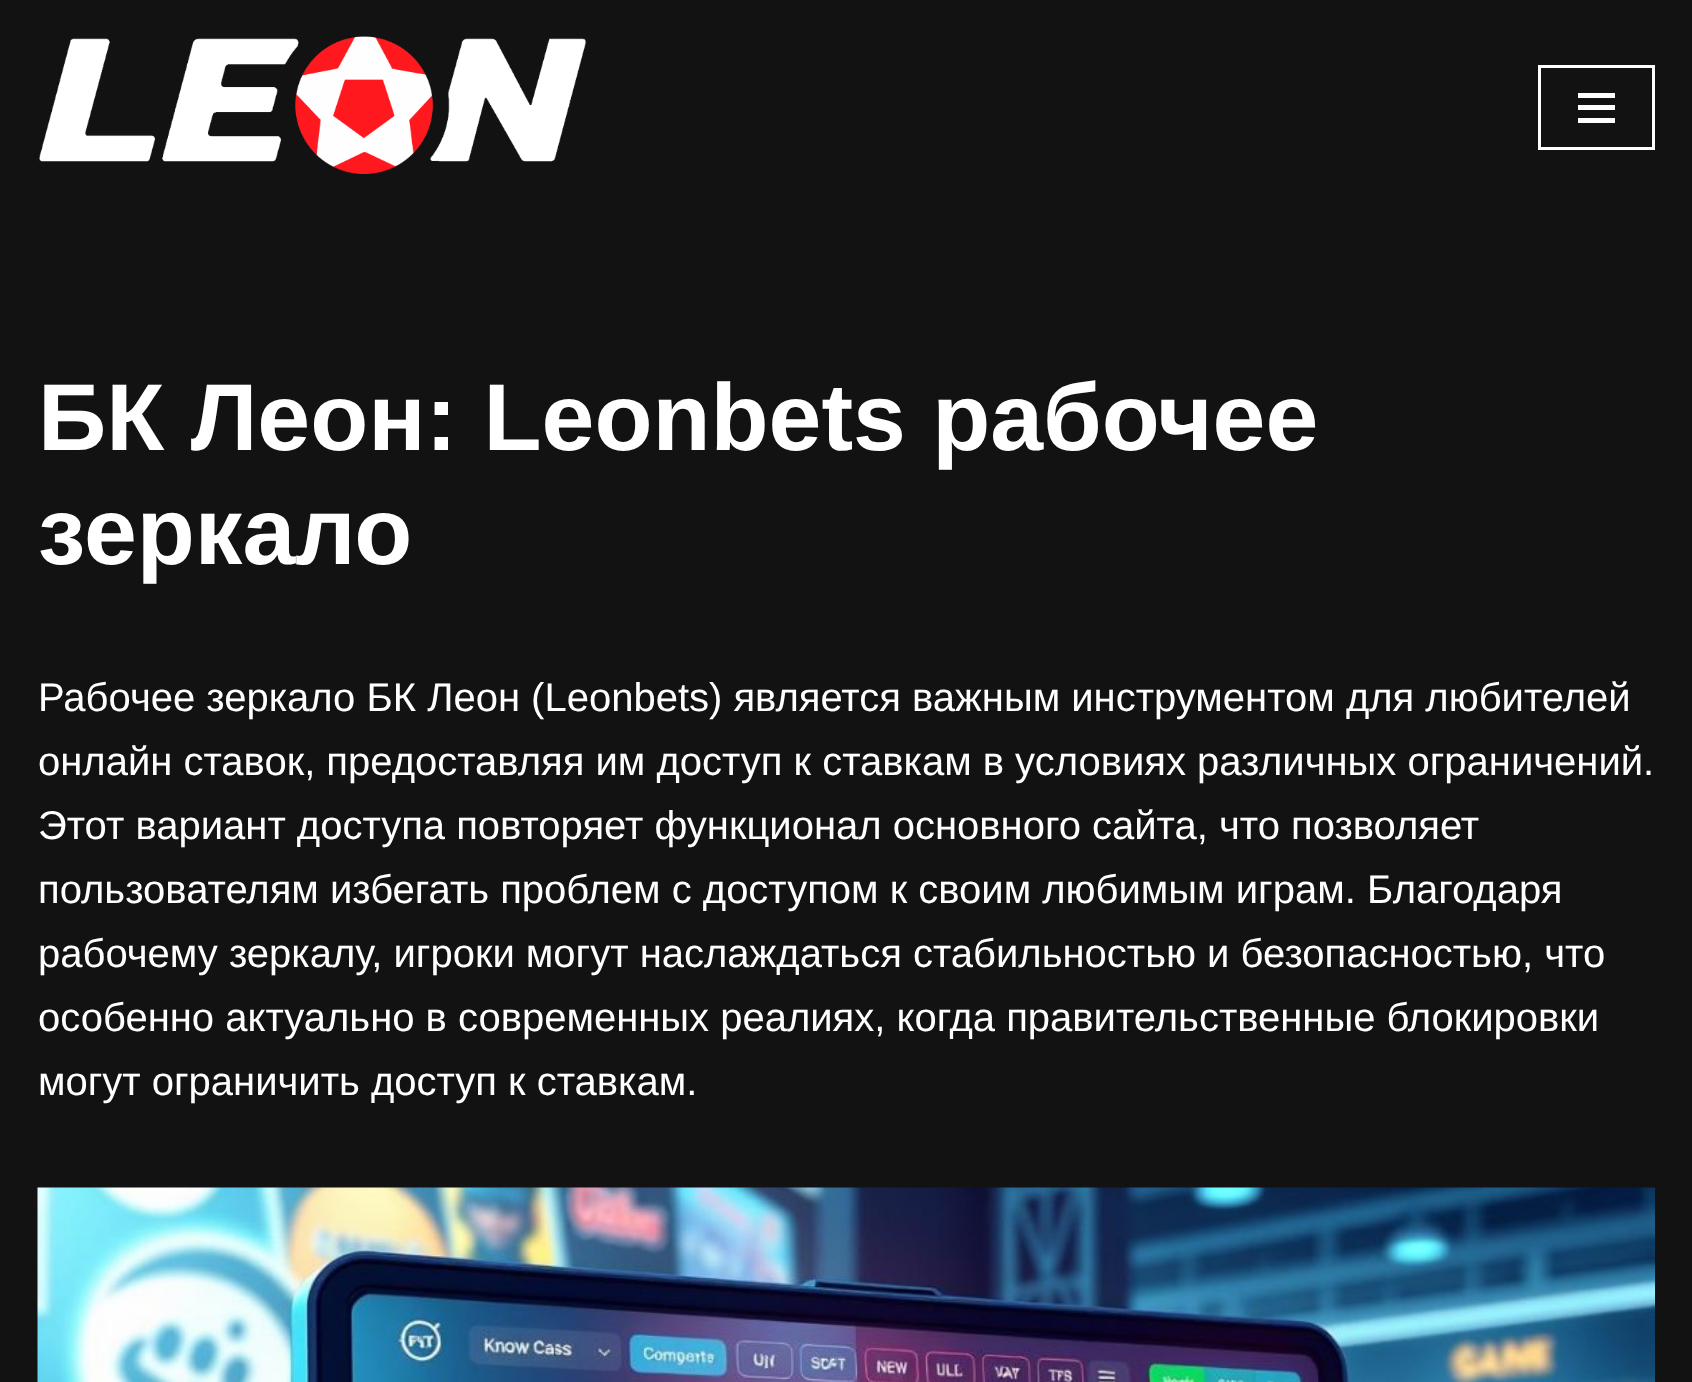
<!DOCTYPE html>
<meta charset="utf-8">
<style>body { margin: 0 } canvas { display: block }</style>
<canvas id="canvas" width="1692" height="1382"></canvas>
<script type="module">
  const canvas = document.getElementById("canvas");
  const ctx = canvas.getContext("2d");
  ctx.miterLimit = 4;
  ctx.fontKerning = "normal";
  async function loadImage(src) {
    const img = new Image();
    img.src = src;
    await img.decode();
    return img;
  }

  ctx.fillStyle = "#121212";
  ctx.fillRect(0, 0, 1692, 1382);
  ctx.drawImage(await loadImage("img1.png"), 39, 36, 547, 138);
  ctx.strokeStyle = "#ffffff";
  ctx.lineWidth = 3;
  ctx.strokeRect(1539.5, 66.5, 114, 82);
  ctx.fillStyle = "#ffffff";
  ctx.fillRect(1578, 93, 37, 5);
  ctx.fillRect(1578, 105, 37, 5);
  ctx.fillRect(1578, 118, 37, 5);
  ctx.font = "bold 95px Liberation Sans";
  ctx.fillText("БК Леон: Leonbets рабочее", 38, 450);
  ctx.fillText("зеркало", 38, 564);
  ctx.font = "40px Liberation Sans";
  ctx.fillText("Рабочее зеркало БК Леон (Leonbets) является важным инструментом для любителей", 38, 711);
  ctx.fillText("онлайн ставок, предоставляя им доступ к ставкам в условиях различных ограничений.", 38, 775);
  ctx.fillText("Этот вариант доступа повторяет функционал основного сайта, что позволяет", 38, 839);
  ctx.fillText("пользователям избегать проблем с доступом к своим любимым играм. Благодаря", 38, 903);
  ctx.fillText("рабочему зеркалу, игроки могут наслаждаться стабильностью и безопасностью, что", 38, 967);
  ctx.fillText("особенно актуально в современных реалиях, когда правительственные блокировки", 38, 1031);
  ctx.fillText("могут ограничить доступ к ставкам.", 38, 1095);
  ctx.drawImage(await loadImage("img2.png"), 37, 1187, 1618, 195);
</script>
